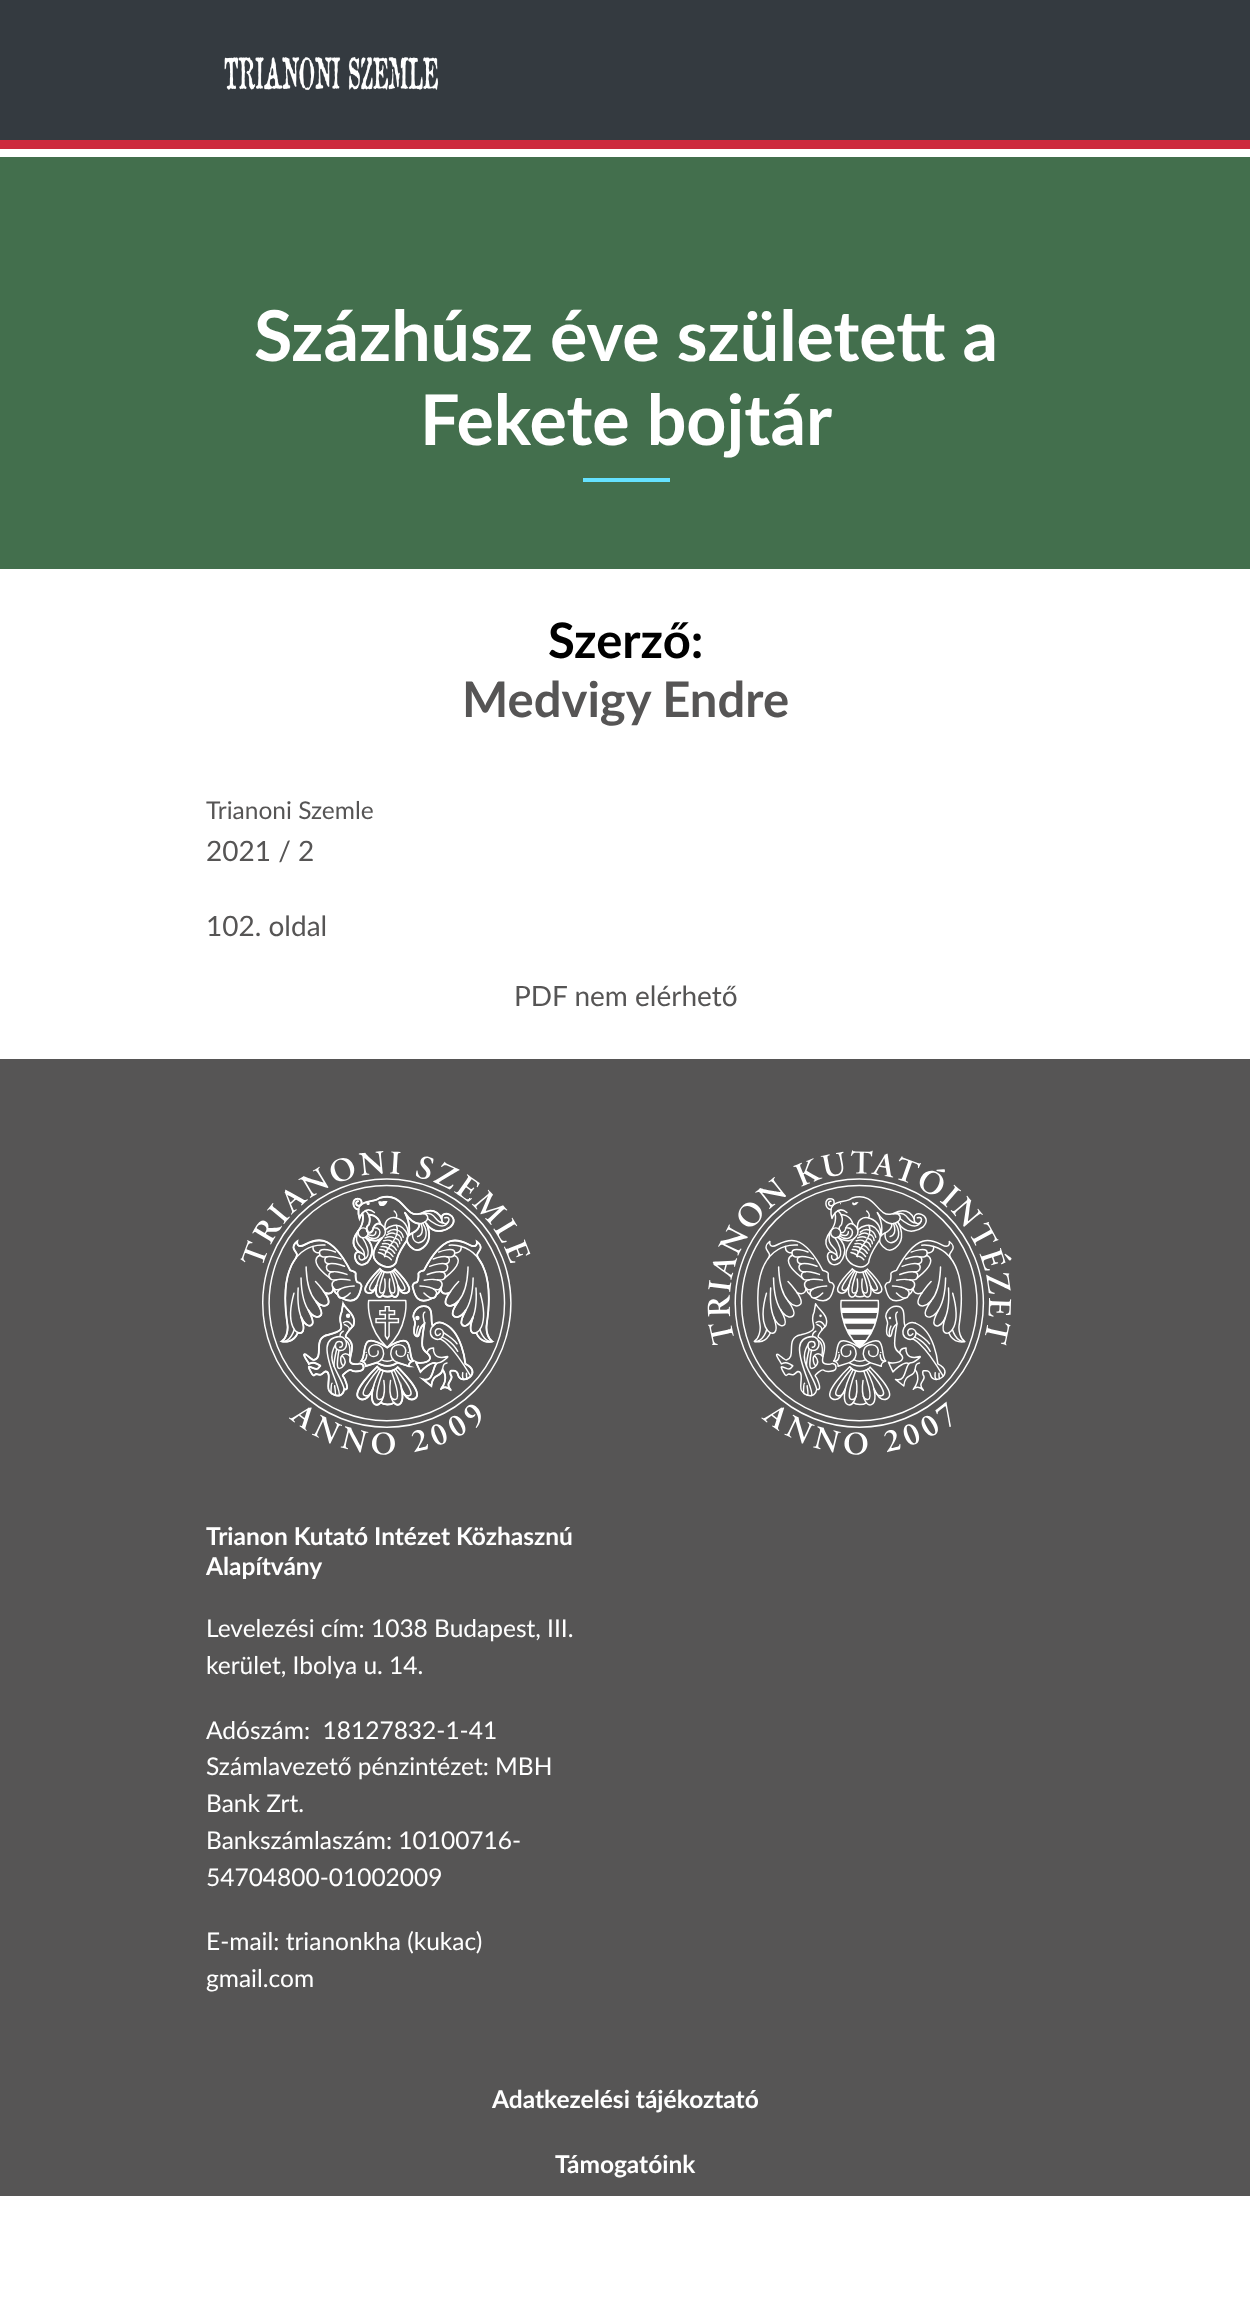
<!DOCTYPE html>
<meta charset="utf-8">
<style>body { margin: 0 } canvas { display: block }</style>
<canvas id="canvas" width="1250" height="2324"></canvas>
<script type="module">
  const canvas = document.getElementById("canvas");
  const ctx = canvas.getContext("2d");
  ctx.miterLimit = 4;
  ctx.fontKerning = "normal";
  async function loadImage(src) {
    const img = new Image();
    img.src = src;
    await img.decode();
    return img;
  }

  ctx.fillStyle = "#ffffff";
  ctx.fillRect(0, 0, 1250, 2324);
  ctx.fillStyle = "#343a40";
  ctx.fillRect(0, 0, 1250, 140);
  ctx.drawImage(await loadImage("img1.png"), 224, 57, 214, 34);
  ctx.drawImage(await loadImage("img2.png"), 0, 140, 1250, 26);
  ctx.fillStyle = "#436f4d";
  ctx.fillRect(0, 166, 1250, 403);
  ctx.font = "bold 70px Lato";
  ctx.fillStyle = "#ffffff";
  ctx.fillText("Százhúsz éve született a", 254, 361);
  ctx.fillText("Fekete bojtár", 420, 445);
  ctx.fillStyle = "#65e2ff";
  ctx.fillRect(583, 478, 87, 4);
  ctx.font = "bold 49px Lato";
  ctx.fillStyle = "#000000";
  ctx.fillText("Szerző:", 548, 658);
  ctx.fillStyle = "#565555";
  ctx.fillText("Medvigy Endre", 462, 717);
  ctx.font = "24.5px Lato";
  ctx.fillText("Trianoni Szemle", 206, 819);
  ctx.font = "28px Lato";
  ctx.fillText("2021 / 2", 206, 861);
  ctx.fillText("102. oldal", 206, 936);
  ctx.fillText("PDF nem elérhető", 514, 1006);
  ctx.fillRect(0, 1059, 1250, 1137);
  ctx.drawImage(await loadImage("img3.png"), 240, 1151, 291, 304);
  ctx.drawImage(await loadImage("img4.png"), 707, 1150, 305, 305);
  ctx.font = "bold 24.5px Lato";
  ctx.fillStyle = "#ffffff";
  ctx.fillText("Trianon Kutató Intézet Közhasznú", 206, 1545);
  ctx.fillText("Alapítvány", 206, 1575);
  ctx.font = "24.5px Lato";
  ctx.fillText("Levelezési cím: 1038 Budapest, III.", 206, 1637);
  ctx.fillText("kerület, Ibolya u. 14.", 206, 1674);
  ctx.fillText("Adószám:  18127832-1-41", 206, 1739);
  ctx.fillText("Számlavezető pénzintézet: MBH", 206, 1775);
  ctx.fillText("Bank Zrt.", 206, 1812);
  ctx.fillText("Bankszámlaszám: 10100716-", 206, 1849);
  ctx.fillText("54704800-01002009", 206, 1886);
  ctx.fillText("E-mail: trianonkha (kukac)", 206, 1950);
  ctx.fillText("gmail.com", 206, 1987);
  ctx.font = "bold 24.5px Lato";
  ctx.fillText("Adatkezelési tájékoztató", 492, 2108);
  ctx.fillText("Támogatóink", 555, 2173);
</script>
